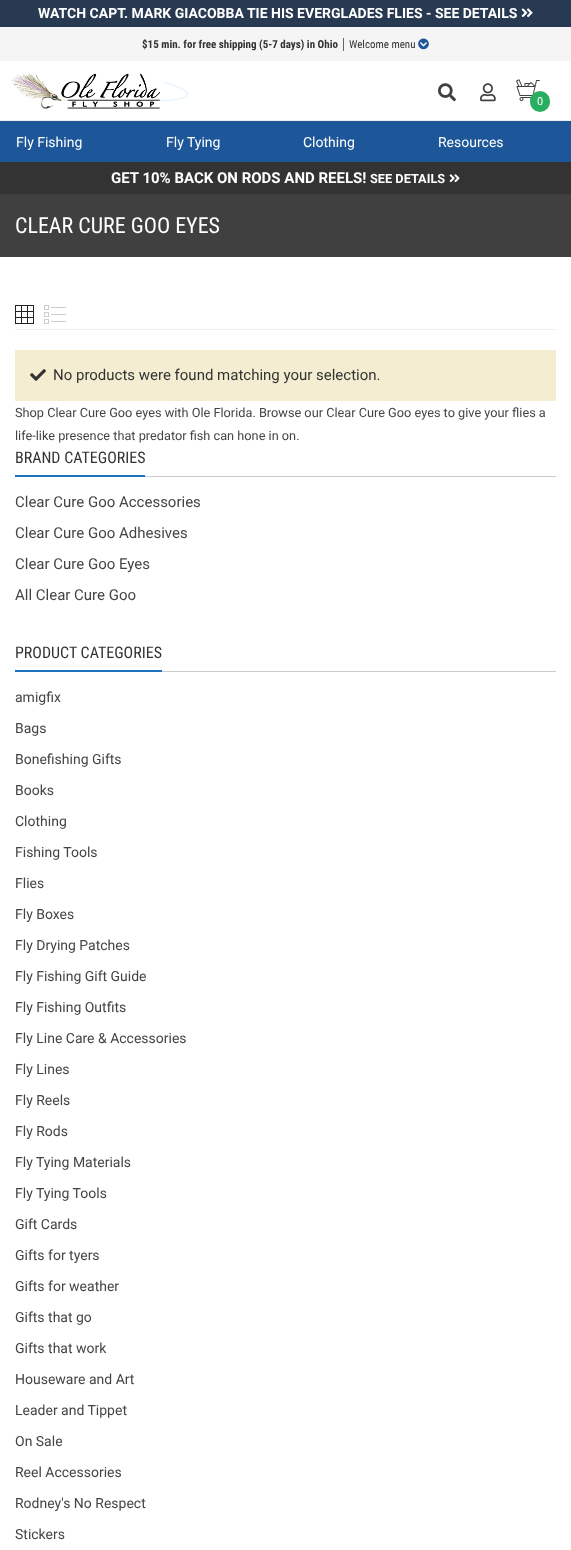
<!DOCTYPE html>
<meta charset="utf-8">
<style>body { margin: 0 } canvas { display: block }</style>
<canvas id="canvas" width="571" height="1550"></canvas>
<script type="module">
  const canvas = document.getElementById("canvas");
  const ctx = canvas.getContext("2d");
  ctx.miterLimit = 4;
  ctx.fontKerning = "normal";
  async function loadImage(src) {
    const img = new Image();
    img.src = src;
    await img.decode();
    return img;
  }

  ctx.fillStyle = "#ffffff";
  ctx.fillRect(0, 0, 571, 1550);
  ctx.fillStyle = "#283952";
  ctx.fillRect(0, 0, 571, 27);
  ctx.font = "bold 14px Roboto";
  ctx.fillStyle = "#ffffff";
  ctx.fillText("WATCH CAPT. MARK GIACOBBA TIE HIS EVERGLADES FLIES - SEE DETAILS", 38, 18);
  ctx.drawImage(await loadImage("img1.png"), 521, 8, 12, 10);
  ctx.fillStyle = "#f5f5f5";
  ctx.fillRect(0, 27, 571, 34);
  ctx.font = "bold 11px Roboto Condensed";
  ctx.fillStyle = "#333333";
  ctx.fillText("$15 min. for free shipping (5-7 days) in Ohio", 142, 48);
  ctx.fillStyle = "#666666";
  ctx.fillRect(343, 38, 1, 13);
  ctx.font = "11px Roboto Condensed";
  ctx.fillStyle = "#333333";
  ctx.fillText("Welcome menu", 349, 48);
  ctx.drawImage(await loadImage("img2.png"), 418, 38, 11, 12);
  ctx.fillStyle = "#eeeeee";
  ctx.fillRect(0, 120, 571, 1);
  ctx.drawImage(await loadImage("img3.png"), 11, 73, 177, 36);
  ctx.drawImage(await loadImage("img4.png"), 438, 83, 18, 19);
  ctx.drawImage(await loadImage("img5.png"), 480, 83, 16, 19);
  ctx.drawImage(await loadImage("img6.png"), 516, 79, 24, 22);
  ctx.fillStyle = "#27ae60";
  ctx.beginPath();
  ctx.roundRect(530, 91, 20, 21, 10);
  ctx.fill();
  ctx.font = "11px Roboto";
  ctx.fillStyle = "#ffffff";
  ctx.fillText("0", 537, 105);
  ctx.fillStyle = "#1e5799";
  ctx.fillRect(0, 121, 571, 41);
  ctx.font = "14px Roboto";
  ctx.fillStyle = "#ffffff";
  ctx.fillText("Fly Fishing", 16, 147);
  ctx.fillText("Fly Tying", 166, 147);
  ctx.fillText("Clothing", 303, 147);
  ctx.fillText("Resources", 438, 147);
  ctx.fillStyle = "#333333";
  ctx.fillRect(0, 162, 571, 32);
  ctx.font = "bold 15px Roboto";
  ctx.fillStyle = "#ffffff";
  ctx.fillText("GET 10% BACK ON RODS AND REELS!", 111, 183);
  ctx.font = "bold 12.75px Roboto";
  ctx.fillText("SEE DETAILS", 370, 183);
  ctx.drawImage(await loadImage("img7.png"), 449, 174, 11, 9);
  ctx.fillStyle = "#404040";
  ctx.fillRect(0, 194, 571, 63);
  ctx.font = "22px Roboto Condensed";
  ctx.fillStyle = "#ffffff";
  ctx.fillText("CLEAR CURE GOO EYES", 15, 233);
  ctx.drawImage(await loadImage("img8.png"), 15, 305, 19, 19);
  ctx.drawImage(await loadImage("img9.png"), 44, 305, 22, 19);
  ctx.fillStyle = "#eeeeee";
  ctx.fillRect(15, 329, 541, 1);
  ctx.fillStyle = "#f4edd1";
  ctx.fillRect(15, 350, 541, 51);
  ctx.drawImage(await loadImage("img10.png"), 30, 369, 16, 12);
  ctx.font = "15px Roboto";
  ctx.fillStyle = "#333333";
  ctx.fillText("No products were found matching your selection.", 53, 380);
  ctx.font = "12.75px Roboto";
  ctx.fillStyle = "#444444";
  ctx.fillText("Shop Clear Cure Goo eyes with Ole Florida. Browse our Clear Cure Goo eyes to give your flies a", 15, 417);
  ctx.fillText("life-like presence that predator fish can hone in on.", 15, 440);
  ctx.fillStyle = "#cccccc";
  ctx.fillRect(145, 476, 411, 1);
  ctx.fillStyle = "#1e73be";
  ctx.fillRect(15, 475, 130, 2);
  ctx.font = "16px Roboto Condensed";
  ctx.fillStyle = "#333333";
  ctx.fillText("BRAND CATEGORIES", 15, 463);
  ctx.font = "15px Roboto";
  ctx.fillStyle = "#444444";
  ctx.fillText("Clear Cure Goo Accessories", 15, 507);
  ctx.fillText("Clear Cure Goo Adhesives", 15, 538);
  ctx.fillText("Clear Cure Goo Eyes", 15, 569);
  ctx.fillText("All Clear Cure Goo", 15, 600);
  ctx.fillStyle = "#cccccc";
  ctx.fillRect(162, 671, 394, 1);
  ctx.fillStyle = "#1e73be";
  ctx.fillRect(15, 670, 147, 2);
  ctx.font = "16px Roboto Condensed";
  ctx.fillStyle = "#333333";
  ctx.fillText("PRODUCT CATEGORIES", 15, 658);
  ctx.font = "14px Roboto";
  ctx.fillStyle = "#444444";
  ctx.fillText("amigfix", 15, 702);
  ctx.fillText("Bags", 15, 733);
  ctx.fillText("Bonefishing Gifts", 15, 764);
  ctx.fillText("Books", 15, 795);
  ctx.fillText("Clothing", 15, 826);
  ctx.fillText("Fishing Tools", 15, 857);
  ctx.fillText("Flies", 15, 888);
  ctx.fillText("Fly Boxes", 15, 919);
  ctx.fillText("Fly Drying Patches", 15, 950);
  ctx.fillText("Fly Fishing Gift Guide", 15, 981);
  ctx.fillText("Fly Fishing Outfits", 15, 1012);
  ctx.fillText("Fly Line Care & Accessories", 15, 1043);
  ctx.fillText("Fly Lines", 15, 1074);
  ctx.fillText("Fly Reels", 15, 1105);
  ctx.fillText("Fly Rods", 15, 1136);
  ctx.fillText("Fly Tying Materials", 15, 1167);
  ctx.fillText("Fly Tying Tools", 15, 1198);
  ctx.fillText("Gift Cards", 15, 1229);
  ctx.fillText("Gifts for tyers", 15, 1260);
  ctx.fillText("Gifts for weather", 15, 1291);
  ctx.fillText("Gifts that go", 15, 1322);
  ctx.fillText("Gifts that work", 15, 1353);
  ctx.fillText("Houseware and Art", 15, 1384);
  ctx.fillText("Leader and Tippet", 15, 1415);
  ctx.fillText("On Sale", 15, 1446);
  ctx.fillText("Reel Accessories", 15, 1477);
  ctx.fillText("Rodney's No Respect", 15, 1508);
  ctx.fillText("Stickers", 15, 1539);
</script>
